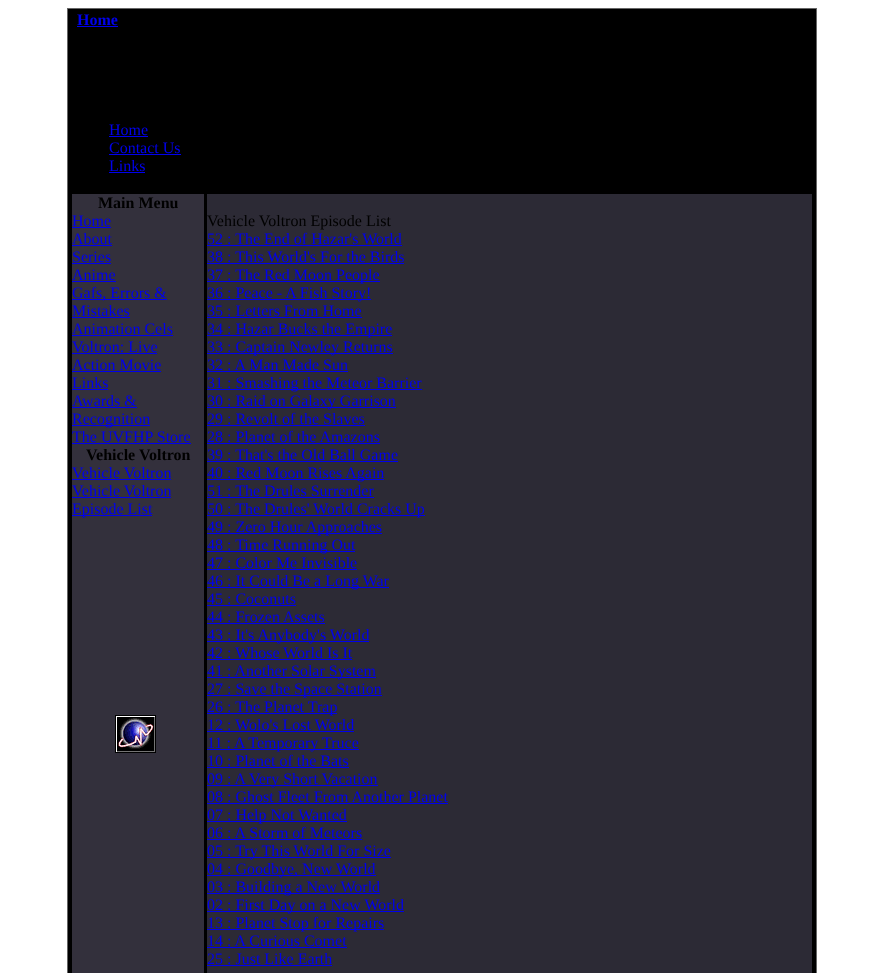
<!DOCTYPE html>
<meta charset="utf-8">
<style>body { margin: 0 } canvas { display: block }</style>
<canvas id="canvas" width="884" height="973"></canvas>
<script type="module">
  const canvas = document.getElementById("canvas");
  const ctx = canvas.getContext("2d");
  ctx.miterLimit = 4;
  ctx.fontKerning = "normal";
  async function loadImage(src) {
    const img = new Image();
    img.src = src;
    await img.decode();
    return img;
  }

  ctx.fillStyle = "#ffffff";
  ctx.fillRect(0, 0, 884, 973);
  ctx.fillStyle = "#666666";
  ctx.fillRect(67, 8, 750, 965);
  ctx.fillStyle = "#000000";
  ctx.fillRect(68, 9, 748, 964);
  ctx.font = "bold 16px Liberation Serif";
  ctx.fillStyle = "#0000ee";
  ctx.fillText("Home", 77, 25);
  ctx.fillRect(77, 26, 41, 1);
  ctx.font = "16px Liberation Serif";
  ctx.fillText("Home", 109, 135);
  ctx.fillRect(109, 136, 39, 1);
  ctx.fillText("Contact Us", 109, 153);
  ctx.fillRect(109, 154, 72, 1);
  ctx.fillText("Links", 109, 171);
  ctx.fillRect(109, 172, 36, 1);
  ctx.fillStyle = "#33303c";
  ctx.fillRect(72, 194, 132, 779);
  ctx.font = "bold 16px Liberation Serif";
  ctx.fillStyle = "#000000";
  ctx.fillText("Main Menu", 98, 208);
  ctx.font = "16px Liberation Serif";
  ctx.fillStyle = "#0000ee";
  ctx.fillText("Home", 72, 226);
  ctx.fillRect(72, 227, 39, 1);
  ctx.fillText("About", 72, 244);
  ctx.fillRect(72, 245, 40, 1);
  ctx.fillText("Series", 72, 262);
  ctx.fillRect(72, 263, 39, 1);
  ctx.fillText("Anime", 72, 280);
  ctx.fillRect(72, 281, 44, 1);
  ctx.fillRect(72, 299, 95, 1);
  ctx.fillText("Gafs, Errors &", 72, 298);
  ctx.fillText("Mistakes", 72, 316);
  ctx.fillRect(72, 317, 58, 1);
  ctx.fillText("Animation Cels", 72, 334);
  ctx.fillRect(72, 335, 101, 1);
  ctx.fillText("Voltron: Live", 72, 352);
  ctx.fillRect(72, 353, 85, 1);
  ctx.fillText("Action Movie", 72, 370);
  ctx.fillRect(72, 371, 89, 1);
  ctx.fillText("Links", 72, 388);
  ctx.fillRect(72, 389, 36, 1);
  ctx.fillText("Awards &", 72, 406);
  ctx.fillRect(72, 407, 65, 1);
  ctx.fillRect(72, 425, 78, 1);
  ctx.fillText("Recognition", 72, 424);
  ctx.fillText("The UVFHP Store", 72, 442);
  ctx.fillRect(72, 443, 119, 1);
  ctx.font = "bold 16px Liberation Serif";
  ctx.fillStyle = "#000000";
  ctx.fillText("Vehicle Voltron", 86, 460);
  ctx.font = "16px Liberation Serif";
  ctx.fillStyle = "#0000ee";
  ctx.fillText("Vehicle Voltron", 72, 478);
  ctx.fillRect(72, 479, 99, 1);
  ctx.fillText("Vehicle Voltron", 72, 496);
  ctx.fillRect(72, 497, 99, 1);
  ctx.fillRect(72, 515, 80, 1);
  ctx.fillText("Episode List", 72, 514);
  ctx.drawImage(await loadImage("img1.png"), 115, 715, 41, 38);
  ctx.fillStyle = "#2c2a35";
  ctx.fillRect(207, 194, 605, 779);
  ctx.fillStyle = "#000000";
  ctx.fillText("Vehicle Voltron Episode List", 207, 226);
  ctx.fillStyle = "#0000ee";
  ctx.fillText("52 : The End of Hazar's World", 207, 244);
  ctx.fillRect(207, 245, 195, 1);
  ctx.fillText("38 : This World's For the Birds", 207, 262);
  ctx.fillRect(207, 263, 197, 1);
  ctx.fillRect(207, 281, 173, 1);
  ctx.fillText("37 : The Red Moon People", 207, 280);
  ctx.fillRect(207, 299, 164, 1);
  ctx.fillText("36 : Peace - A Fish Story!", 207, 298);
  ctx.fillText("35 : Letters From Home", 207, 316);
  ctx.fillRect(207, 317, 155, 1);
  ctx.fillRect(207, 335, 185, 1);
  ctx.fillText("34 : Hazar Bucks the Empire", 207, 334);
  ctx.fillRect(207, 353, 186, 1);
  ctx.fillText("33 : Captain Newley Returns", 207, 352);
  ctx.fillText("32 : A Man Made Sun", 207, 370);
  ctx.fillRect(207, 371, 141, 1);
  ctx.fillRect(207, 389, 215, 1);
  ctx.fillText("31 : Smashing the Meteor Barrier", 207, 388);
  ctx.fillRect(207, 407, 189, 1);
  ctx.fillText("30 : Raid on Galaxy Garrison", 207, 406);
  ctx.fillText("29 : Revolt of the Slaves", 207, 424);
  ctx.fillRect(207, 425, 158, 1);
  ctx.fillText("28 : Planet of the Amazons", 207, 442);
  ctx.fillRect(207, 443, 173, 1);
  ctx.fillText("39 : That's the Old Ball Game", 207, 460);
  ctx.fillRect(207, 461, 191, 1);
  ctx.fillRect(207, 479, 177, 1);
  ctx.fillText("40 : Red Moon Rises Again", 207, 478);
  ctx.fillText("51 : The Drules Surrender", 207, 496);
  ctx.fillRect(207, 497, 167, 1);
  ctx.fillRect(207, 515, 218, 1);
  ctx.fillText("50 : The Drules' World Cracks Up", 207, 514);
  ctx.fillRect(207, 533, 175, 1);
  ctx.fillText("49 : Zero Hour Approaches", 207, 532);
  ctx.fillRect(207, 551, 148, 1);
  ctx.fillText("48 : Time Running Out", 207, 550);
  ctx.fillText("47 : Color Me Invisible", 207, 568);
  ctx.fillRect(207, 569, 150, 1);
  ctx.fillRect(207, 587, 182, 1);
  ctx.fillText("46 : It Could Be a Long War", 207, 586);
  ctx.fillText("45 : Coconuts", 207, 604);
  ctx.fillRect(207, 605, 89, 1);
  ctx.fillText("44 : Frozen Assets", 207, 622);
  ctx.fillRect(207, 623, 118, 1);
  ctx.fillRect(207, 641, 162, 1);
  ctx.fillText("43 : It's Anybody's World", 207, 640);
  ctx.fillText("42 : Whose World Is It", 207, 658);
  ctx.fillRect(207, 659, 145, 1);
  ctx.fillRect(207, 677, 169, 1);
  ctx.fillText("41 : Another Solar System", 207, 676);
  ctx.fillRect(207, 695, 175, 1);
  ctx.fillText("27 : Save the Space Station", 207, 694);
  ctx.fillRect(207, 713, 130, 1);
  ctx.fillText("26 : The Planet Trap", 207, 712);
  ctx.fillText("12 : Wolo's Lost World", 207, 730);
  ctx.fillRect(207, 731, 147, 1);
  ctx.fillRect(207, 749, 152, 1);
  ctx.fillText("11 : A Temporary Truce", 207, 748);
  ctx.fillText("10 : Planet of the Bats", 207, 766);
  ctx.fillRect(207, 767, 142, 1);
  ctx.fillRect(207, 785, 171, 1);
  ctx.fillText("09 : A Very Short Vacation", 207, 784);
  ctx.fillText("08 : Ghost Fleet From Another Planet", 207, 802);
  ctx.fillRect(207, 803, 241, 1);
  ctx.fillRect(207, 821, 140, 1);
  ctx.fillText("07 : Help Not Wanted", 207, 820);
  ctx.fillText("06 : A Storm of Meteors", 207, 838);
  ctx.fillRect(207, 839, 155, 1);
  ctx.fillRect(207, 857, 184, 1);
  ctx.fillText("05 : Try This World For Size", 207, 856);
  ctx.fillRect(207, 875, 169, 1);
  ctx.fillText("04 : Goodbye, New World", 207, 874);
  ctx.fillRect(207, 893, 173, 1);
  ctx.fillText("03 : Building a New World", 207, 892);
  ctx.fillRect(207, 911, 197, 1);
  ctx.fillText("02 : First Day on a New World", 207, 910);
  ctx.fillRect(207, 929, 177, 1);
  ctx.fillText("13 : Planet Stop for Repairs", 207, 928);
  ctx.fillText("14 : A Curious Comet", 207, 946);
  ctx.fillRect(207, 947, 140, 1);
  ctx.fillText("25 : Just Like Earth", 207, 964);
  ctx.fillRect(207, 965, 125, 1);
</script>
